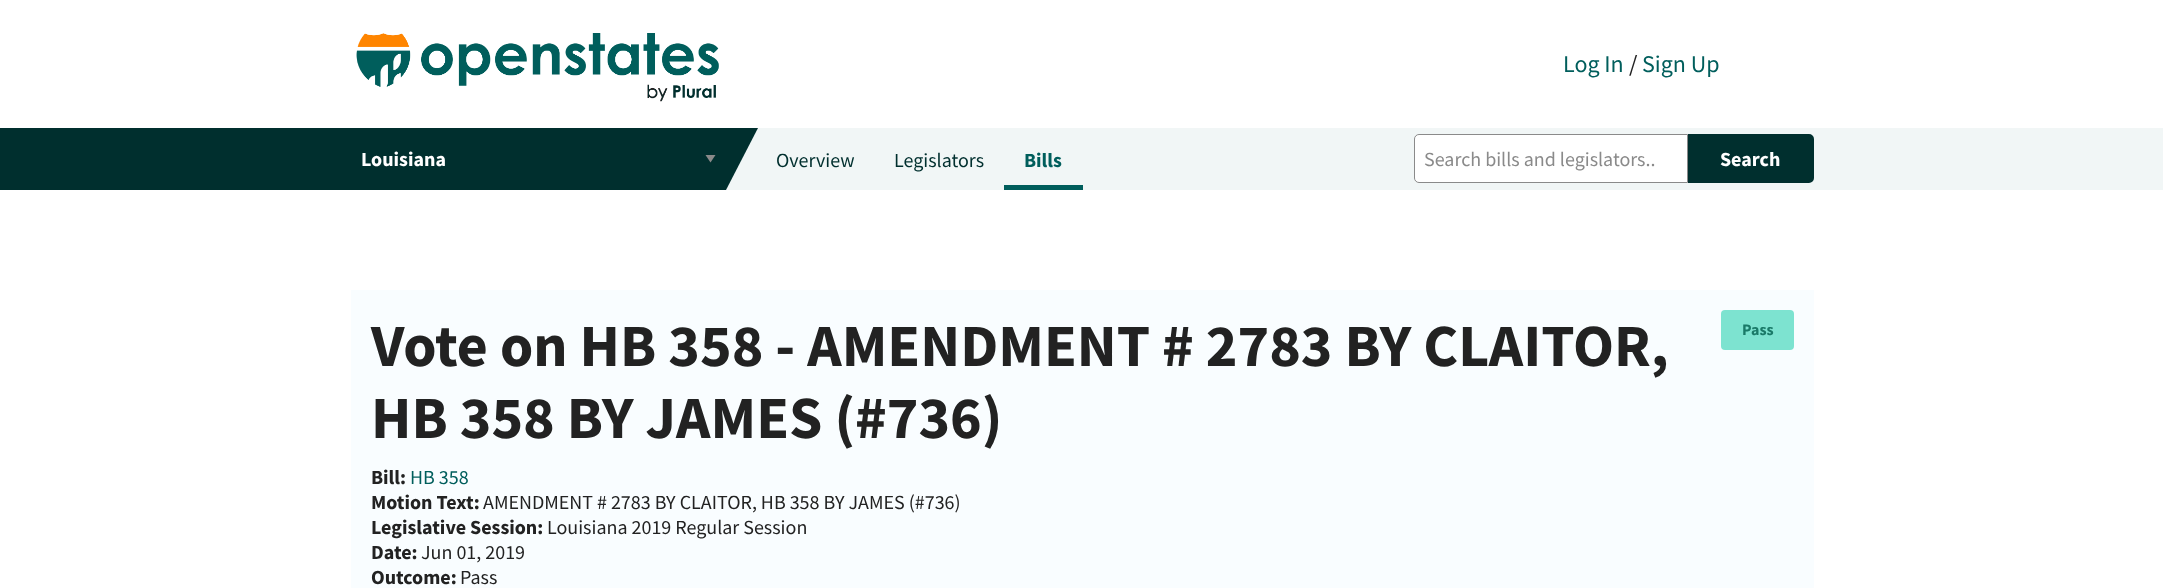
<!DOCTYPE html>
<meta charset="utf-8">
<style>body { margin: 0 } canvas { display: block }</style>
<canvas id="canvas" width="2163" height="588"></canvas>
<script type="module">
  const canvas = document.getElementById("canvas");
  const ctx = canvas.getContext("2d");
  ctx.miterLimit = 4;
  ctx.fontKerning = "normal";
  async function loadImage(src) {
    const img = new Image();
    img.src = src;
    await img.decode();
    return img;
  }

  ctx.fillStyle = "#ffffff";
  ctx.fillRect(0, 0, 2163, 588);
  ctx.drawImage(await loadImage("img1.png"), 356, 33, 363, 69);
  ctx.font = "24px Source Sans Pro";
  ctx.fillStyle = "#005e5c";
  ctx.fillText("Log In", 1563, 72);
  ctx.fillStyle = "#222222";
  ctx.fillText("/", 1629, 72);
  ctx.fillStyle = "#005e5c";
  ctx.fillText("Sign Up", 1642, 72);
  ctx.fillStyle = "#002f2e";
  ctx.fillRect(0, 128, 726, 62);
  ctx.fillStyle = "#f1f6f6";
  ctx.fillRect(726, 128, 1437, 62);
  ctx.fillStyle = "#8a8a8a";
  ctx.beginPath();
  ctx.moveTo(705.5, 155);
  ctx.lineTo(715.5, 155);
  ctx.lineTo(710.5, 162.5);
  ctx.closePath();
  ctx.fill();
  ctx.font = "bold 20px Source Sans Pro";
  ctx.fillStyle = "#ffffff";
  ctx.fillText("Louisiana", 361, 166);
  ctx.fillStyle = "#002f2e";
  ctx.beginPath();
  ctx.moveTo(726, 190);
  ctx.lineTo(726, 128);
  ctx.lineTo(758, 128);
  ctx.closePath();
  ctx.fill();
  ctx.font = "20px Source Sans Pro";
  ctx.fillText("Overview", 776, 167);
  ctx.fillText("Legislators", 894, 167);
  ctx.fillStyle = "#005e5c";
  ctx.fillRect(1004, 185, 79, 5);
  ctx.font = "bold 20px Source Sans Pro";
  ctx.fillText("Bills", 1024, 167);
  ctx.fillStyle = "#ffffff";
  ctx.beginPath();
  ctx.roundRect(1414.5, 134.5, 273, 48, [4.5, 0, 0, 4.5]);
  ctx.fill();
  ctx.strokeStyle = "#8a8a8a";
  ctx.stroke();
  ctx.font = "20px Source Sans Pro";
  ctx.fillStyle = "#8a8a8a";
  ctx.fillText("Search bills and legislators..", 1424, 166);
  ctx.fillStyle = "#002f2e";
  ctx.beginPath();
  ctx.roundRect(1689.5, 135.5, 123, 46, [0, 3.5, 3.5, 0]);
  ctx.fill();
  ctx.strokeStyle = "#002f2e";
  ctx.lineWidth = 3;
  ctx.stroke();
  ctx.font = "bold 20px Source Sans Pro";
  ctx.fillStyle = "#ffffff";
  ctx.fillText("Search", 1720, 166);
  ctx.fillStyle = "#f9fdff";
  ctx.fillRect(351, 290, 1463, 298);
  ctx.font = "bold 60px Source Sans Pro";
  ctx.fillStyle = "#222222";
  ctx.fillText("Vote on HB 358 - AMENDMENT # 2783 BY CLAITOR,", 371, 366);
  ctx.fillText("HB 358 BY JAMES (#736)", 371, 438);
  ctx.fillStyle = "#7de3d0";
  ctx.beginPath();
  ctx.roundRect(1721, 310, 73, 40, 4);
  ctx.fill();
  ctx.font = "bold 16px Source Sans Pro";
  ctx.fillStyle = "#1a7a68";
  ctx.fillText("Pass", 1742, 335);
  ctx.font = "bold 20px Source Sans Pro";
  ctx.fillStyle = "#222222";
  ctx.fillText("Bill:", 371, 484);
  ctx.font = "20px Source Sans Pro";
  ctx.fillStyle = "#005e5c";
  ctx.fillText("HB 358", 410, 484);
  ctx.font = "bold 20px Source Sans Pro";
  ctx.fillStyle = "#222222";
  ctx.fillText("Motion Text:", 371, 509);
  ctx.font = "20px Source Sans Pro";
  ctx.fillText("AMENDMENT # 2783 BY CLAITOR, HB 358 BY JAMES (#736)", 483, 509);
  ctx.font = "bold 20px Source Sans Pro";
  ctx.fillText("Legislative Session:", 371, 534);
  ctx.font = "20px Source Sans Pro";
  ctx.fillText("Louisiana 2019 Regular Session", 547, 534);
  ctx.font = "bold 20px Source Sans Pro";
  ctx.fillText("Date:", 371, 559);
  ctx.font = "20px Source Sans Pro";
  ctx.fillText("Jun 01, 2019", 421, 559);
  ctx.font = "bold 20px Source Sans Pro";
  ctx.fillText("Outcome:", 371, 584);
  ctx.font = "20px Source Sans Pro";
  ctx.fillText("Pass", 460, 584);
</script>
